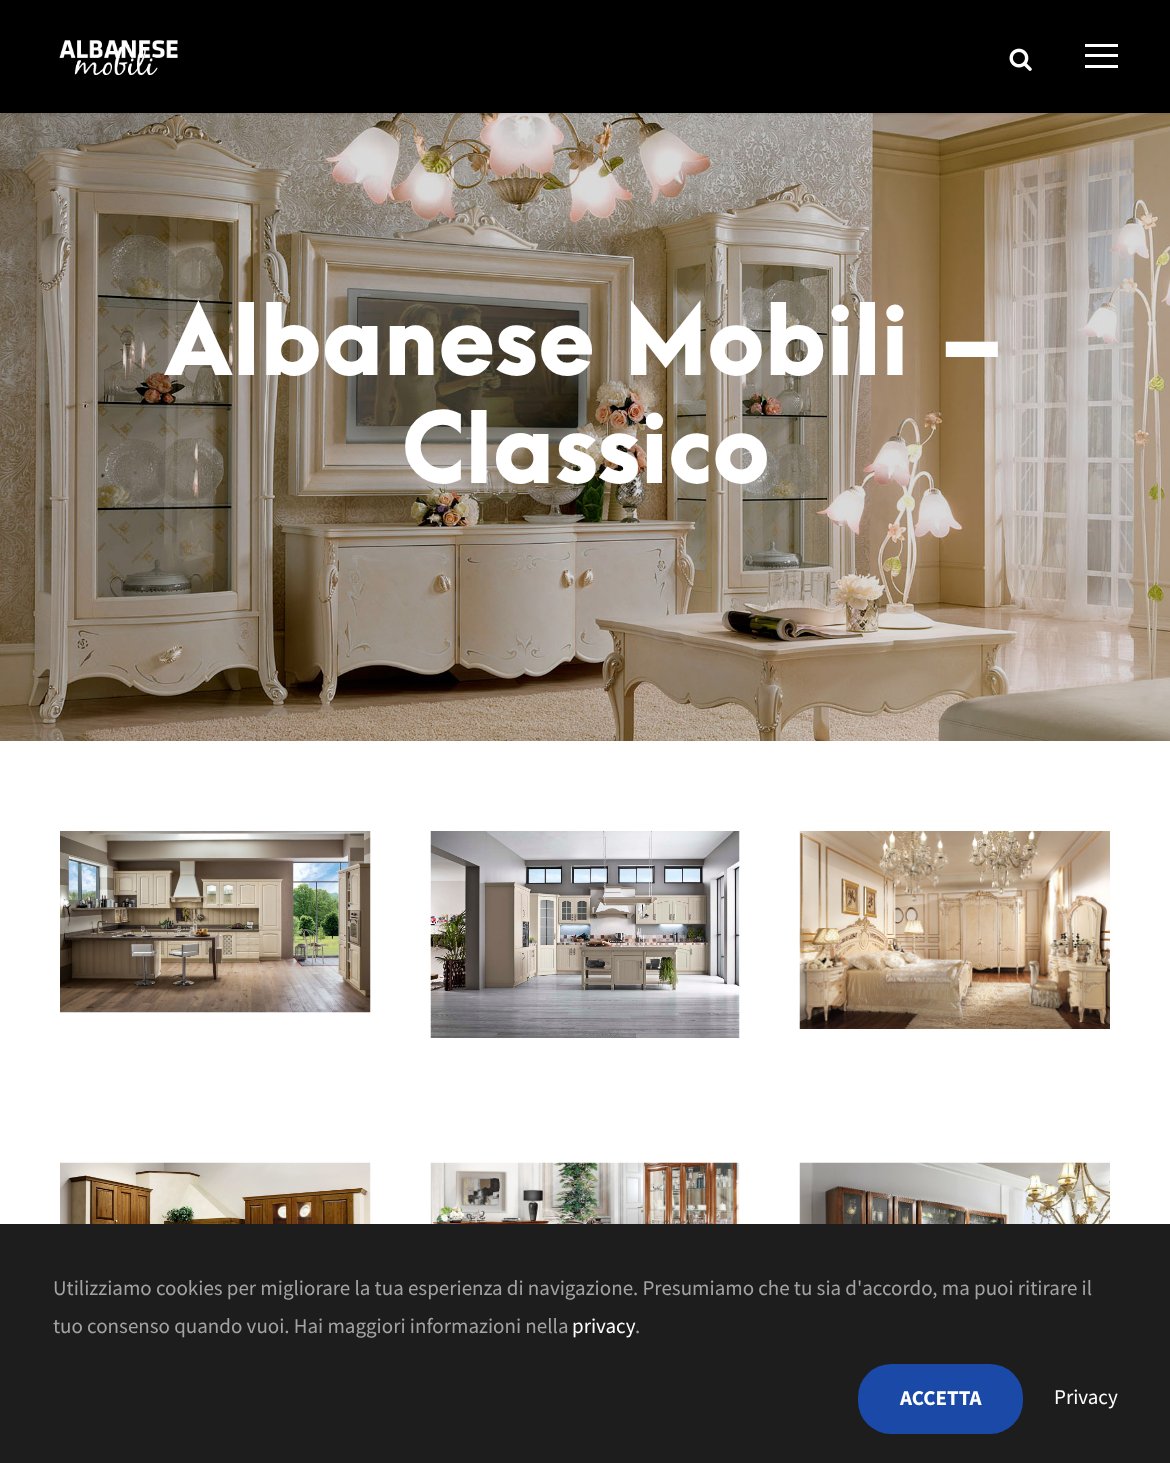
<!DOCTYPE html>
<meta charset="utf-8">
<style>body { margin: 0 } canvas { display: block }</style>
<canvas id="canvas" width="1170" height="1463"></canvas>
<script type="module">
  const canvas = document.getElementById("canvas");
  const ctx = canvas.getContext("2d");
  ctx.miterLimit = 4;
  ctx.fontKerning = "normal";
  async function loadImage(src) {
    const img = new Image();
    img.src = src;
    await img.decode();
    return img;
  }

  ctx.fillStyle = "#ffffff";
  ctx.fillRect(0, 0, 1170, 1463);
  ctx.drawImage(await loadImage("img3.png"), 0, 113, 1170, 628);
  ctx.fillStyle = "rgba(0, 0, 0, 0.1)";
  ctx.filter = "blur(1.5px)";
  ctx.beginPath();
  ctx.rect(0, 2, 1170, 112);
  ctx.fill();
  ctx.filter = "none";
  ctx.fillStyle = "#000000";
  ctx.fillRect(0, 0, 1170, 113);
  ctx.drawImage(await loadImage("img1.png"), 59, 40, 119, 35);
  ctx.drawImage(await loadImage("img2.png"), 1009, 48, 23, 23);
  ctx.fillStyle = "#ffffff";
  ctx.fillRect(1085, 44, 33, 3);
  ctx.fillRect(1085, 54, 33, 3);
  ctx.fillRect(1085, 65, 33, 3);
  ctx.font = "900 90px 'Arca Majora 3'";
  ctx.fillText("Albanese Mobili –", 164, 375);
  ctx.fillText("Classico", 401, 483);
  ctx.drawImage(await loadImage("img4.png"), 60, 831, 311, 182);
  ctx.drawImage(await loadImage("img5.png"), 430, 831, 310, 207);
  ctx.drawImage(await loadImage("img6.png"), 799, 831, 311, 198);
  ctx.drawImage(await loadImage("img7.png"), 60, 1162, 311, 62);
  ctx.drawImage(await loadImage("img8.png"), 430, 1162, 310, 62);
  ctx.drawImage(await loadImage("img9.png"), 799, 1162, 311, 62);
  ctx.fillStyle = "#1d1d1d";
  ctx.fillRect(0, 1224, 1170, 239);
  ctx.font = "21px Source Sans Pro";
  ctx.fillStyle = "#a3a3a3";
  ctx.fillText("Utilizziamo cookies per migliorare la tua esperienza di navigazione. Presumiamo che tu sia d'accordo, ma puoi ritirare il", 53, 1295);
  ctx.fillText("tuo consenso quando vuoi. Hai maggiori informazioni nella", 53, 1333);
  ctx.fillStyle = "#ffffff";
  ctx.fillText("privacy", 572, 1333);
  ctx.fillStyle = "#a3a3a3";
  ctx.fillText(".", 635, 1333);
  ctx.fillStyle = "#1a49a8";
  ctx.beginPath();
  ctx.roundRect(858, 1364, 165, 70, 33);
  ctx.fill();
  ctx.font = "bold 21px Source Sans Pro";
  ctx.fillStyle = "#ffffff";
  ctx.fillText("ACCETTA", 900, 1405);
  ctx.font = "21px Source Sans Pro";
  ctx.fillText("Privacy", 1054, 1404);
</script>
